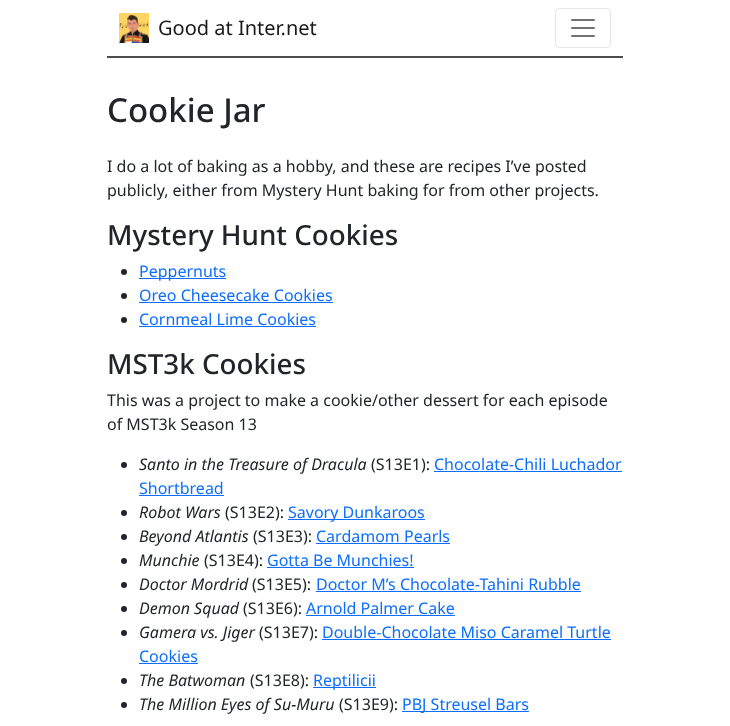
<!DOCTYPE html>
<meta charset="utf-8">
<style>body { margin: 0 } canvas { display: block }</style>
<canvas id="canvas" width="730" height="726"></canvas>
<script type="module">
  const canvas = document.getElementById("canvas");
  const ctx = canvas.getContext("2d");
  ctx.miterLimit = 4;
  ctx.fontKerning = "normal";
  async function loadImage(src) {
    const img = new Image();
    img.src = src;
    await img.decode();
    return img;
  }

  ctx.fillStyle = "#ffffff";
  ctx.fillRect(0, 0, 730, 726);
  ctx.fillStyle = "#4d4d4d";
  ctx.fillRect(107, 56, 516, 2);
  ctx.drawImage(await loadImage("img1.png"), 119, 13, 30, 30);
  ctx.font = "20px Noto Sans";
  ctx.fillStyle = "#1a1a1a";
  ctx.fillText("Good at Inter.net", 158, 35);
  ctx.beginPath();
  ctx.roundRect(555.5, 8.5, 55, 39, 3.5);
  ctx.strokeStyle = "#e6e6e6";
  ctx.stroke();
  ctx.drawImage(await loadImage("img2.png"), 571, 19, 24, 18);
  ctx.font = "500 33px Noto Sans";
  ctx.fillStyle = "#212529";
  ctx.fillText("Cookie Jar", 107, 122);
  ctx.font = "16px Noto Sans";
  ctx.fillText("I do a lot of baking as a hobby, and these are recipes I’ve posted", 107, 172);
  ctx.fillText("publicly, either from Mystery Hunt baking for from other projects.", 107, 196);
  ctx.font = "500 27.75px Noto Sans";
  ctx.fillText("Mystery Hunt Cookies", 107, 245);
  ctx.beginPath();
  ctx.arc(124, 272, 3, 0, Math.PI * 2);
  ctx.fill();
  ctx.fillStyle = "#0d6efd";
  ctx.fillRect(139, 278, 87, 1);
  ctx.font = "16px Noto Sans";
  ctx.fillText("Peppernuts", 139, 277);
  ctx.fillStyle = "#212529";
  ctx.beginPath();
  ctx.arc(124, 296, 3, 0, Math.PI * 2);
  ctx.fill();
  ctx.fillStyle = "#0d6efd";
  ctx.fillText("Oreo Cheesecake Cookies", 139, 301);
  ctx.fillRect(139, 302, 194, 1);
  ctx.fillStyle = "#212529";
  ctx.beginPath();
  ctx.arc(124, 320, 3, 0, Math.PI * 2);
  ctx.fill();
  ctx.fillStyle = "#0d6efd";
  ctx.fillText("Cornmeal Lime Cookies", 139, 325);
  ctx.fillRect(139, 326, 177, 1);
  ctx.font = "500 27.75px Noto Sans";
  ctx.fillStyle = "#212529";
  ctx.fillText("MST3k Cookies", 107, 374);
  ctx.font = "16px Noto Sans";
  ctx.fillText("This was a project to make a cookie/other dessert for each episode", 107, 406);
  ctx.fillText("of MST3k Season 13", 107, 430);
  ctx.beginPath();
  ctx.arc(124, 465, 3, 0, Math.PI * 2);
  ctx.fill();
  ctx.font = "italic 16px Noto Sans";
  ctx.fillText("Santo in the Treasure of Dracula", 139, 470);
  ctx.font = "16px Noto Sans";
  ctx.fillText("(S13E1):", 371, 470);
  ctx.fillStyle = "#0d6efd";
  ctx.fillText("Chocolate-Chili Luchador", 434, 470);
  ctx.fillRect(434, 471, 188, 1);
  ctx.fillText("Shortbread", 139, 494);
  ctx.fillRect(139, 495, 85, 1);
  ctx.fillStyle = "#212529";
  ctx.beginPath();
  ctx.arc(124, 513, 3, 0, Math.PI * 2);
  ctx.fill();
  ctx.font = "italic 16px Noto Sans";
  ctx.fillText("Robot Wars", 139, 518);
  ctx.font = "16px Noto Sans";
  ctx.fillText("(S13E2):", 225, 518);
  ctx.fillStyle = "#0d6efd";
  ctx.fillRect(288, 519, 137, 1);
  ctx.fillText("Savory Dunkaroos", 288, 518);
  ctx.fillStyle = "#212529";
  ctx.beginPath();
  ctx.arc(124, 537, 3, 0, Math.PI * 2);
  ctx.fill();
  ctx.font = "italic 16px Noto Sans";
  ctx.fillText("Beyond Atlantis", 139, 542);
  ctx.font = "16px Noto Sans";
  ctx.fillText("(S13E3):", 253, 542);
  ctx.fillStyle = "#0d6efd";
  ctx.fillText("Cardamom Pearls", 316, 542);
  ctx.fillRect(316, 543, 134, 1);
  ctx.fillStyle = "#212529";
  ctx.beginPath();
  ctx.arc(124, 561, 3, 0, Math.PI * 2);
  ctx.fill();
  ctx.font = "italic 16px Noto Sans";
  ctx.fillText("Munchie", 139, 566);
  ctx.font = "16px Noto Sans";
  ctx.fillText("(S13E4):", 204, 566);
  ctx.fillStyle = "#0d6efd";
  ctx.fillText("Gotta Be Munchies!", 267, 566);
  ctx.fillRect(267, 567, 147, 1);
  ctx.fillStyle = "#212529";
  ctx.beginPath();
  ctx.arc(124, 585, 3, 0, Math.PI * 2);
  ctx.fill();
  ctx.font = "italic 16px Noto Sans";
  ctx.fillText("Doctor Mordrid", 139, 590);
  ctx.font = "16px Noto Sans";
  ctx.fillText("(S13E5):", 252, 590);
  ctx.fillStyle = "#0d6efd";
  ctx.fillText("Doctor M’s Chocolate-Tahini Rubble", 316, 590);
  ctx.fillRect(316, 591, 265, 1);
  ctx.fillStyle = "#212529";
  ctx.beginPath();
  ctx.arc(124, 609, 3, 0, Math.PI * 2);
  ctx.fill();
  ctx.font = "italic 16px Noto Sans";
  ctx.fillText("Demon Squad", 139, 614);
  ctx.font = "16px Noto Sans";
  ctx.fillText("(S13E6):", 243, 614);
  ctx.fillStyle = "#0d6efd";
  ctx.fillText("Arnold Palmer Cake", 306, 614);
  ctx.fillRect(306, 615, 149, 1);
  ctx.fillStyle = "#212529";
  ctx.beginPath();
  ctx.arc(124, 633, 3, 0, Math.PI * 2);
  ctx.fill();
  ctx.font = "italic 16px Noto Sans";
  ctx.fillText("Gamera vs. Jiger", 139, 638);
  ctx.font = "16px Noto Sans";
  ctx.fillText("(S13E7):", 259, 638);
  ctx.fillStyle = "#0d6efd";
  ctx.fillText("Double-Chocolate Miso Caramel Turtle", 322, 638);
  ctx.fillRect(322, 639, 289, 1);
  ctx.fillText("Cookies", 139, 662);
  ctx.fillRect(139, 663, 59, 1);
  ctx.fillStyle = "#212529";
  ctx.beginPath();
  ctx.arc(124, 681, 3, 0, Math.PI * 2);
  ctx.fill();
  ctx.font = "italic 16px Noto Sans";
  ctx.fillText("The Batwoman", 139, 686);
  ctx.font = "16px Noto Sans";
  ctx.fillText("(S13E8):", 250, 686);
  ctx.fillStyle = "#0d6efd";
  ctx.fillRect(313, 687, 63, 1);
  ctx.fillText("Reptilicii", 313, 686);
  ctx.fillStyle = "#212529";
  ctx.beginPath();
  ctx.arc(124, 705, 3, 0, Math.PI * 2);
  ctx.fill();
  ctx.font = "italic 16px Noto Sans";
  ctx.fillText("The Million Eyes of Su-Muru", 139, 710);
  ctx.font = "16px Noto Sans";
  ctx.fillText("(S13E9):", 339, 710);
  ctx.fillStyle = "#0d6efd";
  ctx.fillRect(402, 711, 127, 1);
  ctx.fillText("PBJ Streusel Bars", 402, 710);
</script>
